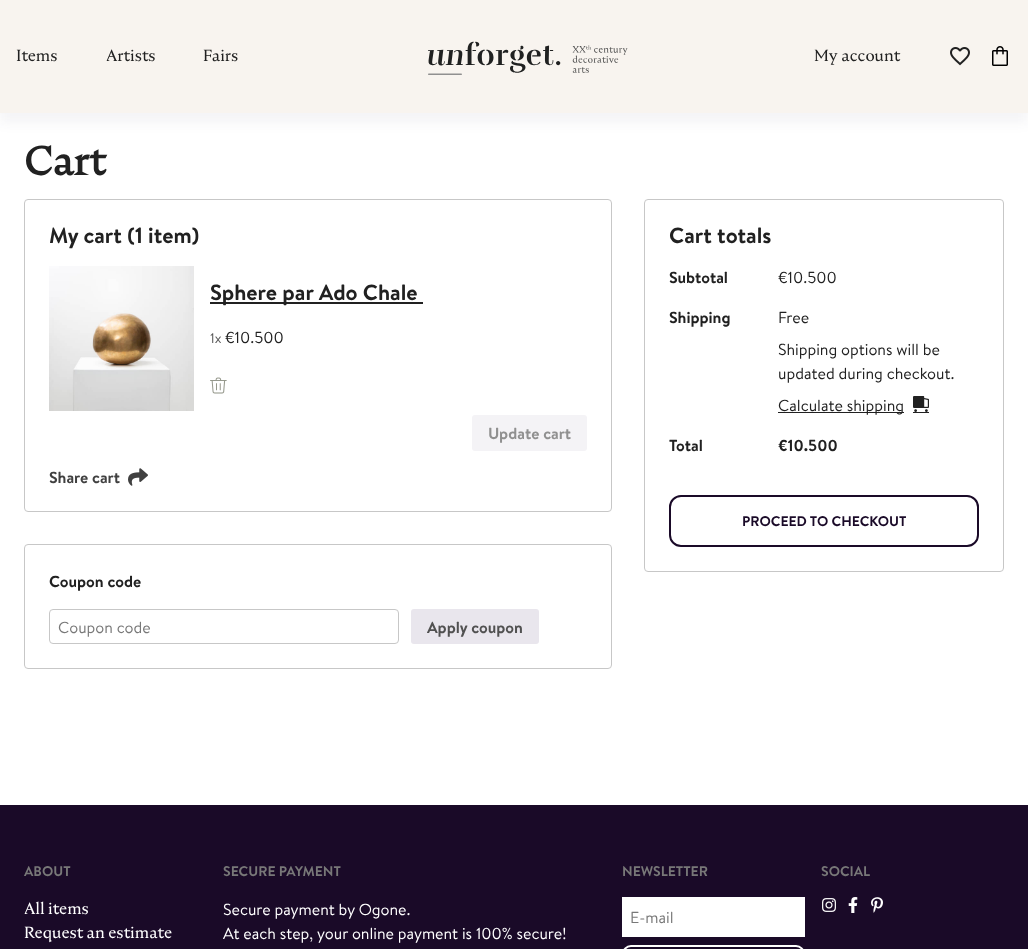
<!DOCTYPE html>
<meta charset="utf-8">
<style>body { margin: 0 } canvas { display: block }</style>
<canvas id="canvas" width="1028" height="949"></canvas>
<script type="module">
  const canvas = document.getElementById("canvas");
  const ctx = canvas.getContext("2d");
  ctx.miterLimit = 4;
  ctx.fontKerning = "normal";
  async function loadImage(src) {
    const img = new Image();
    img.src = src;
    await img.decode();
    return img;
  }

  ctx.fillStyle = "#ffffff";
  ctx.fillRect(0, 0, 1028, 949);
  ctx.fillStyle = "rgba(41, 35, 78, 0.05)";
  ctx.filter = "blur(6px)";
  ctx.beginPath();
  ctx.rect(0, 10, 1028, 113);
  ctx.fill();
  ctx.filter = "none";
  ctx.fillStyle = "#f8f4ef";
  ctx.fillRect(0, 0, 1028, 113);
  ctx.font = "16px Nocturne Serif";
  ctx.fillStyle = "#212121";
  ctx.fillText("Items", 16, 61);
  ctx.fillText("Artists", 106, 61);
  ctx.fillText("Fairs", 203, 61);
  ctx.drawImage(await loadImage("img1.png"), 428, 41, 200, 34);
  ctx.fillText("My account", 814, 61);
  ctx.drawImage(await loadImage("img2.png"), 950, 47, 20, 19);
  ctx.drawImage(await loadImage("img3.png"), 992, 46, 16, 20);
  ctx.font = "bold 40px Nocturne Serif";
  ctx.fillText("Cart", 24, 175);
  ctx.beginPath();
  ctx.roundRect(24.5, 199.5, 587, 312, 3.5);
  ctx.strokeStyle = "#c7c7c7";
  ctx.stroke();
  ctx.font = "bold 22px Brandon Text";
  ctx.fillText("My cart (1 item)", 49, 243);
  ctx.drawImage(await loadImage("img4.png"), 49, 266, 145, 145);
  ctx.fillRect(210, 302, 213, 2);
  ctx.fillText("Sphere par Ado Chale", 210, 300);
  ctx.font = "14px Brandon Text";
  ctx.fillStyle = "#595959";
  ctx.fillText("1x", 210, 343);
  ctx.font = "16px Brandon Text";
  ctx.fillStyle = "#212121";
  ctx.fillText("€10.500", 225, 343);
  ctx.drawImage(await loadImage("img5.png"), 210, 377, 17, 17);
  ctx.fillStyle = "#f4f3f6";
  ctx.beginPath();
  ctx.roundRect(472, 415, 115, 36, 3);
  ctx.fill();
  ctx.font = "bold 16px Brandon Text";
  ctx.fillStyle = "#909090";
  ctx.fillText("Update cart", 488, 439);
  ctx.fillStyle = "#404040";
  ctx.fillText("Share cart", 49, 483);
  ctx.drawImage(await loadImage("img6.png"), 128, 468, 20, 18);
  ctx.beginPath();
  ctx.roundRect(24.5, 544.5, 587, 124, 3.5);
  ctx.stroke();
  ctx.fillStyle = "#212121";
  ctx.fillText("Coupon code", 49, 587);
  ctx.beginPath();
  ctx.roundRect(49.5, 609.5, 349, 34, 3.5);
  ctx.stroke();
  ctx.font = "16px Brandon Text";
  ctx.fillStyle = "#787878";
  ctx.fillText("Coupon code", 58, 633);
  ctx.fillStyle = "#e9e6ed";
  ctx.beginPath();
  ctx.roundRect(411, 609, 128, 35, 3);
  ctx.fill();
  ctx.font = "bold 16px Brandon Text";
  ctx.fillStyle = "#515151";
  ctx.fillText("Apply coupon", 427, 633);
  ctx.beginPath();
  ctx.roundRect(644.5, 199.5, 359, 372, 3.5);
  ctx.stroke();
  ctx.font = "bold 22px Brandon Text";
  ctx.fillStyle = "#212121";
  ctx.fillText("Cart totals", 669, 243);
  ctx.font = "bold 16px Brandon Text";
  ctx.fillText("Subtotal", 669, 283);
  ctx.font = "16px Brandon Text";
  ctx.fillText("€10.500", 778, 283);
  ctx.font = "bold 16px Brandon Text";
  ctx.fillText("Shipping", 669, 323);
  ctx.font = "16px Brandon Text";
  ctx.fillText("Free", 778, 323);
  ctx.fillText("Shipping options will be", 778, 355);
  ctx.fillText("updated during checkout.", 778, 379);
  ctx.fillRect(778, 412, 126, 1);
  ctx.fillText("Calculate shipping", 778, 411);
  ctx.drawImage(await loadImage("img7.png"), 913, 396, 16, 16);
  ctx.fillRect(913, 412, 16, 1);
  ctx.font = "bold 16px Brandon Text";
  ctx.fillText("Total", 669, 451);
  ctx.fillText("€10.500", 778, 451);
  ctx.beginPath();
  ctx.roundRect(670, 496, 308, 50, 11);
  ctx.strokeStyle = "#1a0a28";
  ctx.lineWidth = 2;
  ctx.stroke();
  ctx.font = "bold 14px Brandon Text";
  ctx.fillStyle = "#1a0a28";
  ctx.fillText("PROCEED TO CHECKOUT", 742, 526);
  ctx.fillRect(0, 805, 1028, 144);
  ctx.fillStyle = "#787878";
  ctx.fillText("ABOUT", 24, 876);
  ctx.font = "16px Nocturne Serif";
  ctx.fillStyle = "#ffffff";
  ctx.fillText("All items", 24, 914);
  ctx.fillText("Request an estimate", 24, 938);
  ctx.font = "bold 14px Brandon Text";
  ctx.fillStyle = "#787878";
  ctx.fillText("SECURE PAYMENT", 223, 876);
  ctx.font = "16px Brandon Text";
  ctx.fillStyle = "#ffffff";
  ctx.fillText("Secure payment by Ogone.", 223, 915);
  ctx.fillText("At each step, your online payment is 100% secure!", 223, 939);
  ctx.font = "bold 14px Brandon Text";
  ctx.fillStyle = "#787878";
  ctx.fillText("NEWSLETTER", 622, 876);
  ctx.fillStyle = "#ffffff";
  ctx.fillRect(622, 897, 183, 40);
  ctx.font = "16px Brandon Text";
  ctx.fillStyle = "#787878";
  ctx.fillText("E-mail", 630, 923);
  ctx.beginPath();
  ctx.roundRect(623, 946, 181, 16, 11);
  ctx.strokeStyle = "#ffffff";
  ctx.stroke();
  ctx.font = "bold 14px Brandon Text";
  ctx.fillText("SOCIAL", 821, 876);
  ctx.drawImage(await loadImage("img8.png"), 822, 898, 14, 14);
  ctx.drawImage(await loadImage("img9.png"), 848, 897, 10, 16);
  ctx.drawImage(await loadImage("img10.png"), 871, 897, 12, 16);
</script>
